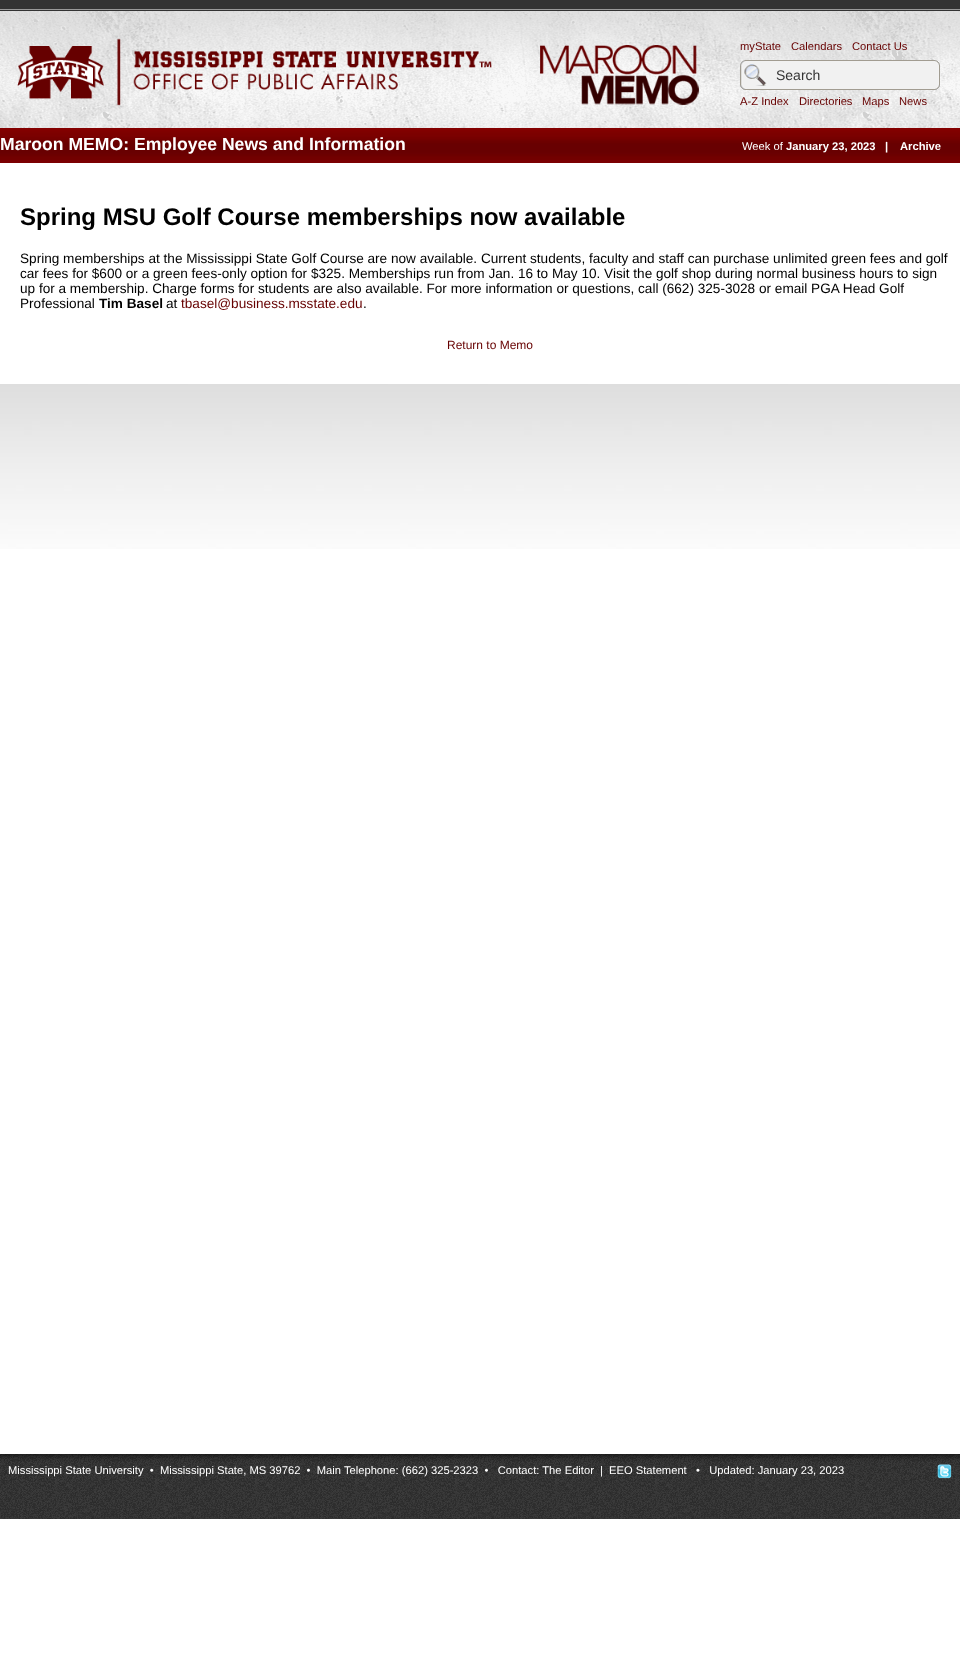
<!DOCTYPE html>
<meta charset="utf-8">
<style>body { margin: 0 } canvas { display: block }</style>
<canvas id="canvas" width="960" height="1676"></canvas>
<script type="module">
  const canvas = document.getElementById("canvas");
  const ctx = canvas.getContext("2d");
  ctx.miterLimit = 4;
  ctx.fontKerning = "normal";
  async function loadImage(src) {
    const img = new Image();
    img.src = src;
    await img.decode();
    return img;
  }

  ctx.fillStyle = "#ffffff";
  ctx.fillRect(0, 0, 960, 1676);
  ctx.drawImage(await loadImage("img1.png"), 0, 0, 960, 128);
  ctx.drawImage(await loadImage("img2.png"), 17, 38, 475, 68);
  ctx.drawImage(await loadImage("img3.png"), 540, 45, 159, 60);
  ctx.font = "11.2px Liberation Sans";
  ctx.fillStyle = "#660000";
  ctx.fillText("myState", 740, 50);
  ctx.fillText("Calendars", 791, 50);
  ctx.fillText("Contact Us", 852, 50);
  ctx.drawImage(await loadImage("img4.png"), 740, 60, 200, 30);
  ctx.font = "14px Liberation Sans";
  ctx.fillStyle = "#333333";
  ctx.fillText("Search", 776, 80);
  ctx.font = "11.2px Liberation Sans";
  ctx.fillStyle = "#660000";
  ctx.fillText("A-Z Index", 740, 105);
  ctx.fillText("Directories", 799, 105);
  ctx.fillText("Maps", 862, 105);
  ctx.fillText("News", 899, 105);
  ctx.drawImage(await loadImage("img5.png"), 0, 128, 960, 35);
  ctx.font = "bold 17.6px Liberation Sans";
  ctx.fillStyle = "#ffffff";
  ctx.fillText("Maroon MEMO: Employee News and Information", 0, 150);
  ctx.font = "11.2px Liberation Sans";
  ctx.fillText("Week of", 742, 150);
  ctx.font = "bold 11.2px Liberation Sans";
  ctx.fillText("January 23, 2023   |", 786, 150);
  ctx.fillText("Archive", 900, 150);
  ctx.drawImage(await loadImage("img6.png"), 0, 384, 960, 165);
  ctx.font = "bold 24px Liberation Sans";
  ctx.fillStyle = "#000000";
  ctx.fillText("Spring MSU Golf Course memberships now available", 20, 225);
  ctx.font = "13.6px Liberation Sans";
  ctx.fillText("Spring memberships at the Mississippi State Golf Course are now available. Current students, faculty and staff can purchase unlimited green fees and golf", 20, 263);
  ctx.fillText("car fees for $600 or a green fees-only option for $325. Memberships run from Jan. 16 to May 10. Visit the golf shop during normal business hours to sign", 20, 278);
  ctx.fillText("up for a membership. Charge forms for students are also available. For more information or questions, call (662) 325-3028 or email PGA Head Golf", 20, 293);
  ctx.fillText("Professional", 20, 308);
  ctx.font = "bold 13.6px Liberation Sans";
  ctx.fillText("Tim Basel", 99, 308);
  ctx.font = "13.6px Liberation Sans";
  ctx.fillText("at", 166, 308);
  ctx.fillStyle = "#660000";
  ctx.fillText("tbasel@business.msstate.edu", 181, 308);
  ctx.fillStyle = "#000000";
  ctx.fillText(".", 363, 308);
  ctx.font = "12px Liberation Sans";
  ctx.fillStyle = "#660000";
  ctx.fillText("Return to Memo", 447, 349);
  ctx.drawImage(await loadImage("img7.png"), 0, 1454, 960, 65);
  ctx.font = "11.2px Liberation Sans";
  ctx.fillStyle = "#ffffff";
  ctx.fillText("Mississippi State University  •  Mississippi State, MS 39762  •  Main Telephone: (662) 325-2323  •   Contact: The Editor", 8, 1474);
  ctx.fillText("|", 600, 1474);
  ctx.fillText("EEO Statement", 609, 1474);
  ctx.fillText("•   Updated: January 23, 2023", 696, 1474);
  ctx.drawImage(await loadImage("img8.png"), 937, 1464, 15, 15);
</script>
